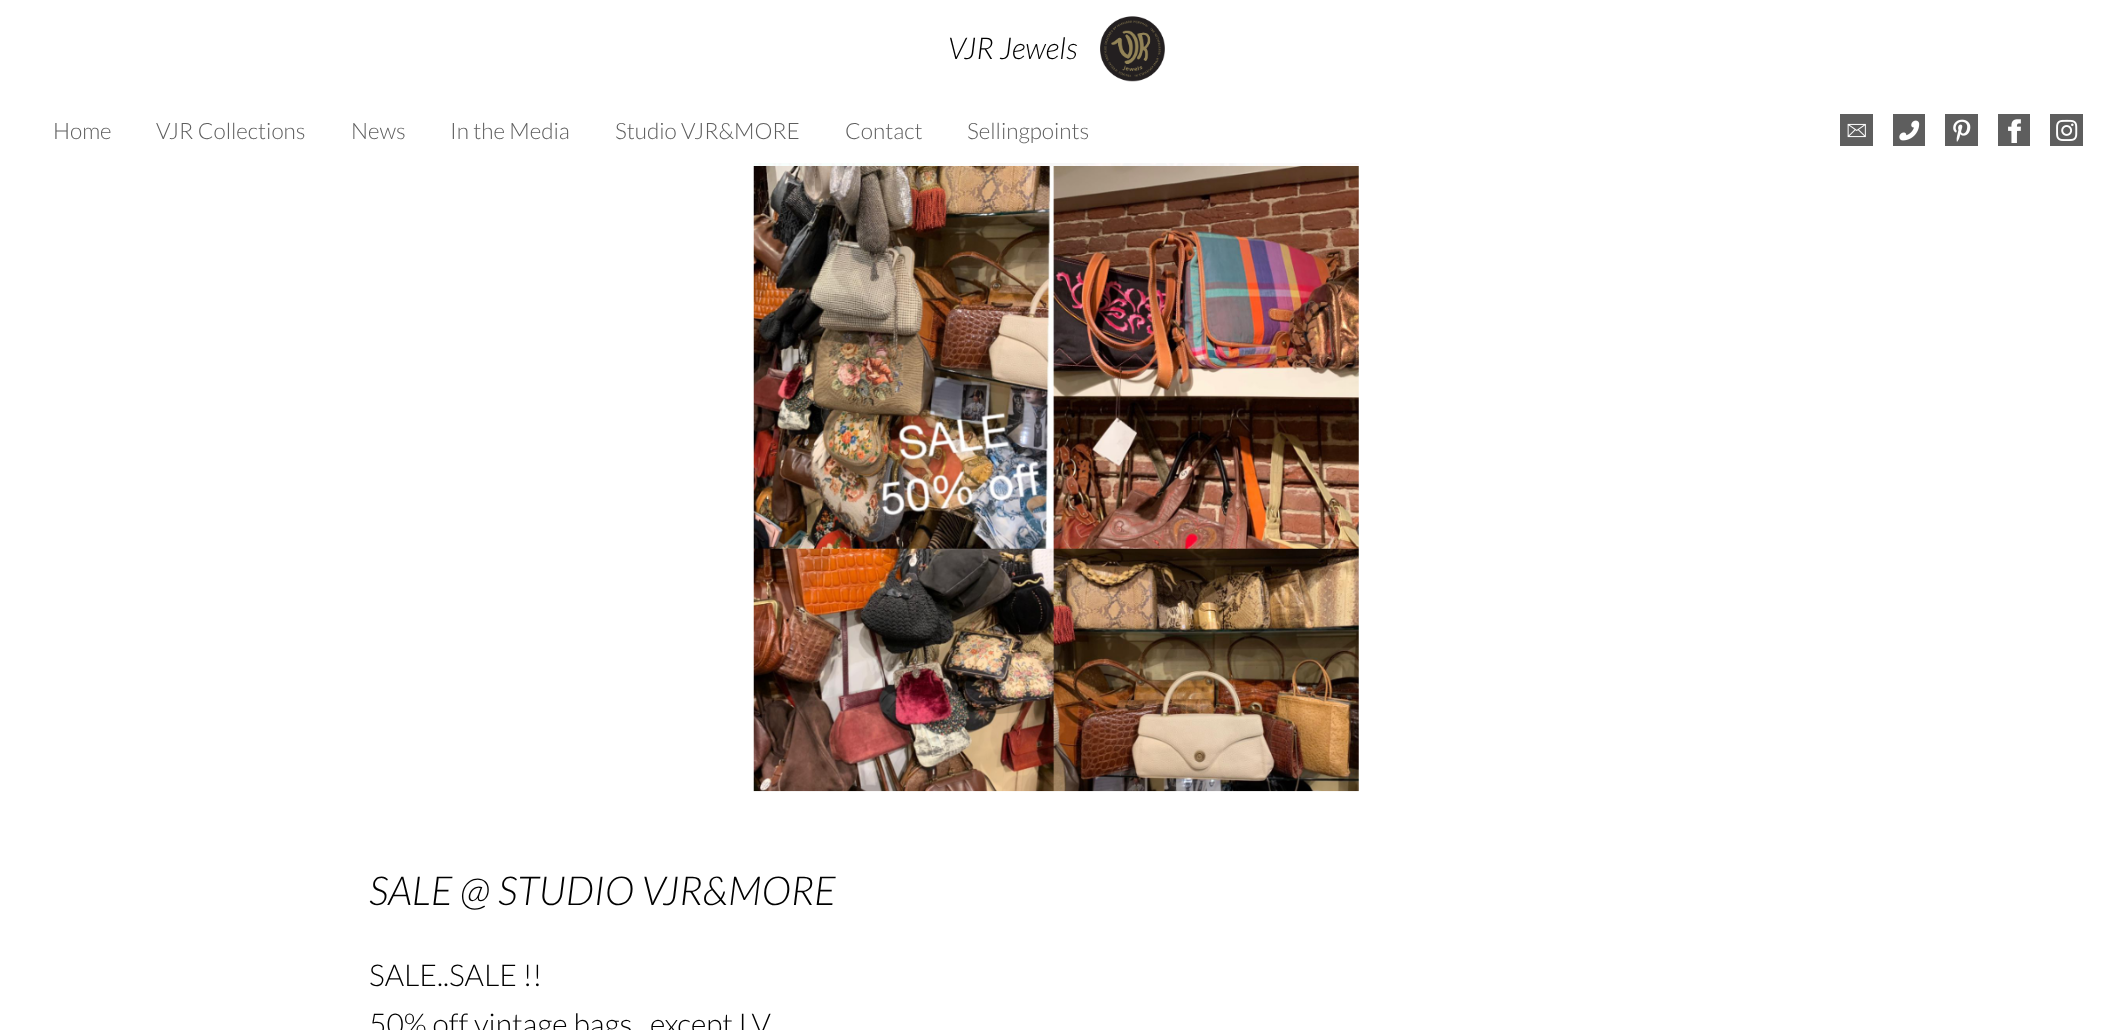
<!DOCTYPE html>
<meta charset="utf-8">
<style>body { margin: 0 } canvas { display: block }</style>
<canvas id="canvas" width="2112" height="1030"></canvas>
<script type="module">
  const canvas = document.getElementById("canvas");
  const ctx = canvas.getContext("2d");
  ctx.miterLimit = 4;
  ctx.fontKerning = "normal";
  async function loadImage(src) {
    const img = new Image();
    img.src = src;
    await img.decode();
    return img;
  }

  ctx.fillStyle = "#ffffff";
  ctx.fillRect(0, 0, 2112, 1030);
  ctx.drawImage(await loadImage("img1.png"), 1100, 16, 65, 66);
  ctx.font = "italic 300 30px Lato";
  ctx.fillStyle = "#000000";
  ctx.fillText("VJR Jewels", 948, 59);
  ctx.font = "300 22.5px Lato";
  ctx.fillStyle = "#5e5e5e";
  ctx.fillText("Home", 53, 139);
  ctx.fillText("VJR Collections", 156, 139);
  ctx.fillText("News", 351, 139);
  ctx.fillText("In the Media", 450, 139);
  ctx.fillText("Studio VJR&MORE", 615, 139);
  ctx.fillText("Contact", 845, 139);
  ctx.fillText("Sellingpoints", 967, 139);
  ctx.fillRect(1840, 114, 33, 32);
  ctx.drawImage(await loadImage("img2.png"), 1847, 123, 19, 15);
  ctx.fillRect(1893, 114, 32, 32);
  ctx.drawImage(await loadImage("img3.png"), 1899, 120, 21, 21);
  ctx.fillRect(1945, 114, 33, 32);
  ctx.drawImage(await loadImage("img4.png"), 1953, 119, 18, 23);
  ctx.fillRect(1998, 114, 32, 32);
  ctx.drawImage(await loadImage("img5.png"), 2008, 119, 13, 24);
  ctx.fillRect(2050, 114, 33, 32);
  ctx.drawImage(await loadImage("img6.png"), 2056, 119, 22, 22);
  ctx.drawImage(await loadImage("img7.png"), 753, 163, 606, 629);
  ctx.font = "italic 300 40px Lato";
  ctx.fillStyle = "#000000";
  ctx.fillText("SALE @ STUDIO VJR&MORE", 369, 905);
  ctx.font = "300 30px Lato";
  ctx.fillText("SALE..SALE !!", 369, 986);
  ctx.fillText("50% off vintage bags , except LV.", 369, 1035);
</script>
